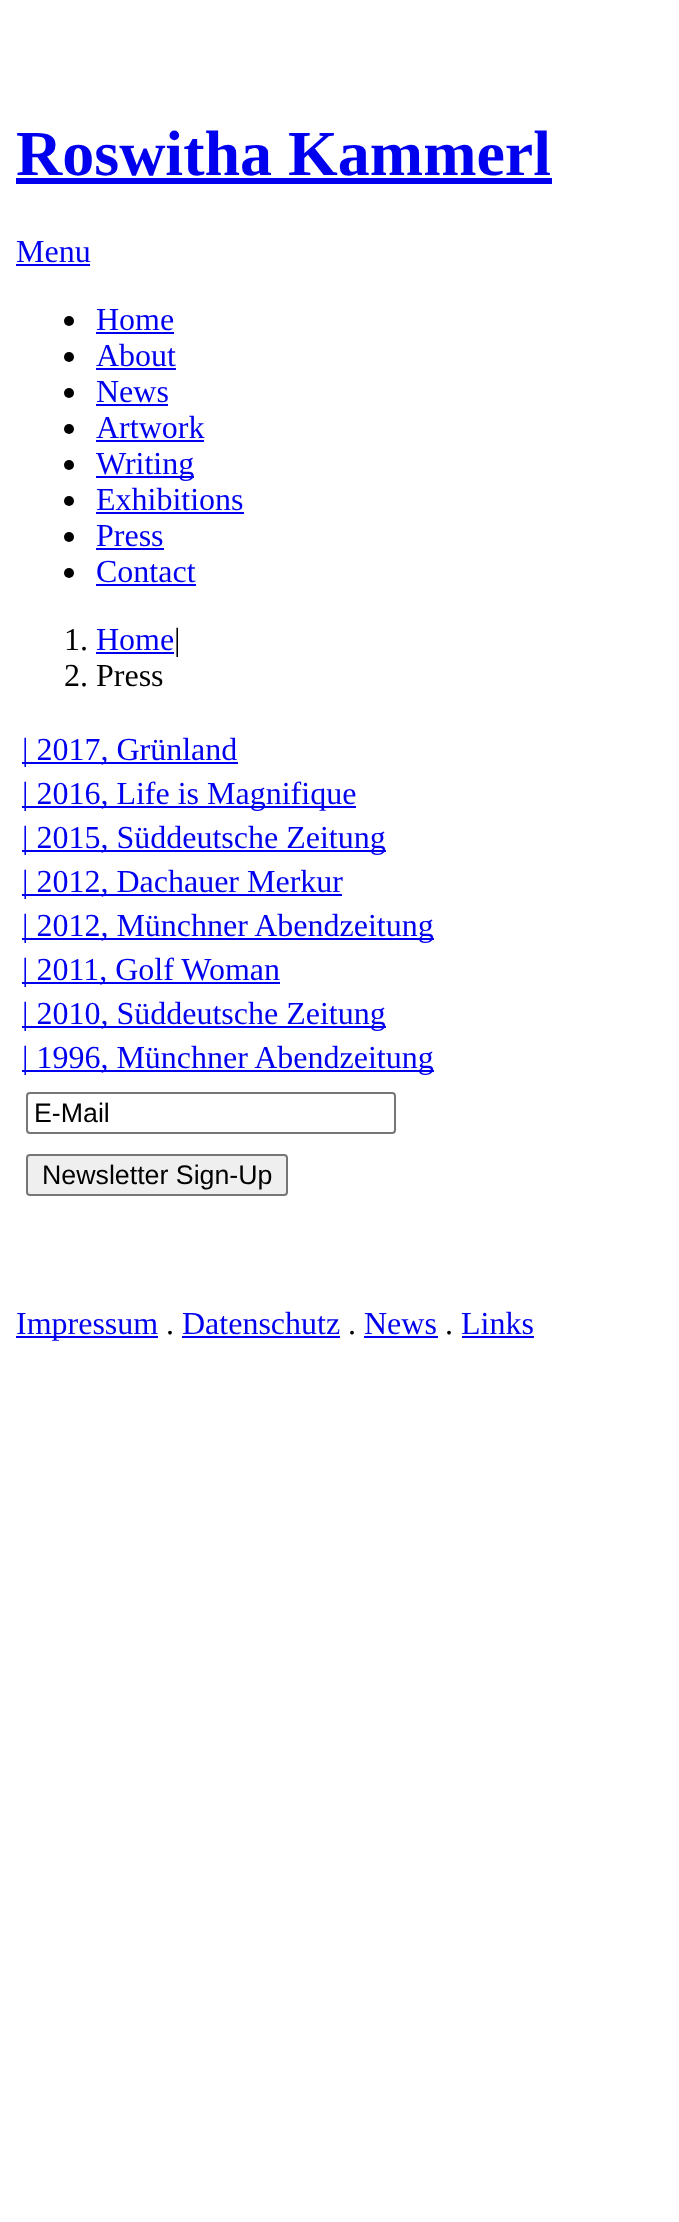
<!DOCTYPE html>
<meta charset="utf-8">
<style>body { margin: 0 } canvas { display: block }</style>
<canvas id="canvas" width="679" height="2222"></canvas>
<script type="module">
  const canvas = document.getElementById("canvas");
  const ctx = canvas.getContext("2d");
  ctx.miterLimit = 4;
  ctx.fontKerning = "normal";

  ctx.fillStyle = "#ffffff";
  ctx.fillRect(0, 0, 679, 2222);
  ctx.font = "bold 64px Liberation Serif";
  ctx.fillStyle = "#0000ee";
  ctx.fillText("Roswitha Kammerl", 16, 175);
  ctx.fillRect(16, 178, 536, 6);
  ctx.font = "32px Liberation Serif";
  ctx.fillText("Menu", 16, 262);
  ctx.fillRect(16, 264, 74, 2);
  ctx.fillStyle = "#000000";
  ctx.beginPath();
  ctx.arc(69, 321, 5, 0, Math.PI * 2);
  ctx.fill();
  ctx.fillStyle = "#0000ee";
  ctx.fillText("Home", 96, 330);
  ctx.fillRect(96, 332, 78, 2);
  ctx.fillStyle = "#000000";
  ctx.beginPath();
  ctx.arc(69, 357, 5, 0, Math.PI * 2);
  ctx.fill();
  ctx.fillStyle = "#0000ee";
  ctx.fillText("About", 96, 366);
  ctx.fillRect(96, 368, 80, 2);
  ctx.fillStyle = "#000000";
  ctx.beginPath();
  ctx.arc(69, 393, 5, 0, Math.PI * 2);
  ctx.fill();
  ctx.fillStyle = "#0000ee";
  ctx.fillText("News", 96, 402);
  ctx.fillRect(96, 404, 72, 2);
  ctx.fillStyle = "#000000";
  ctx.beginPath();
  ctx.arc(69, 429, 5, 0, Math.PI * 2);
  ctx.fill();
  ctx.fillStyle = "#0000ee";
  ctx.fillText("Artwork", 96, 438);
  ctx.fillRect(96, 440, 108, 2);
  ctx.fillStyle = "#000000";
  ctx.beginPath();
  ctx.arc(69, 465, 5, 0, Math.PI * 2);
  ctx.fill();
  ctx.fillStyle = "#0000ee";
  ctx.fillRect(96, 476, 98, 2);
  ctx.fillText("Writing", 96, 474);
  ctx.fillStyle = "#000000";
  ctx.beginPath();
  ctx.arc(69, 501, 5, 0, Math.PI * 2);
  ctx.fill();
  ctx.fillStyle = "#0000ee";
  ctx.fillText("Exhibitions", 96, 510);
  ctx.fillRect(96, 512, 148, 2);
  ctx.fillStyle = "#000000";
  ctx.beginPath();
  ctx.arc(69, 537, 5, 0, Math.PI * 2);
  ctx.fill();
  ctx.fillStyle = "#0000ee";
  ctx.fillText("Press", 96, 546);
  ctx.fillRect(96, 548, 68, 2);
  ctx.fillStyle = "#000000";
  ctx.beginPath();
  ctx.arc(69, 573, 5, 0, Math.PI * 2);
  ctx.fill();
  ctx.fillStyle = "#0000ee";
  ctx.fillText("Contact", 96, 582);
  ctx.fillRect(96, 584, 100, 2);
  ctx.fillStyle = "#000000";
  ctx.fillText("1.", 64, 650);
  ctx.fillStyle = "#0000ee";
  ctx.fillText("Home", 96, 650);
  ctx.fillRect(96, 652, 78, 2);
  ctx.fillStyle = "#000000";
  ctx.fillText("|", 174, 650);
  ctx.fillText("2. Press", 64, 686);
  ctx.fillStyle = "#0000ee";
  ctx.fillRect(22, 762, 216, 2);
  ctx.fillText("| 2017, Grünland", 22, 760);
  ctx.fillRect(22, 806, 334, 2);
  ctx.fillText("| 2016, Life is Magnifique", 22, 804);
  ctx.fillRect(22, 850, 364, 2);
  ctx.fillText("| 2015, Süddeutsche Zeitung", 22, 848);
  ctx.fillRect(22, 894, 320, 2);
  ctx.fillText("| 2012, Dachauer Merkur", 22, 892);
  ctx.fillRect(22, 938, 412, 2);
  ctx.fillText("| 2012, Münchner Abendzeitung", 22, 936);
  ctx.fillRect(22, 982, 258, 2);
  ctx.fillText("| 2011, Golf Woman", 22, 980);
  ctx.fillRect(22, 1026, 364, 2);
  ctx.fillText("| 2010, Süddeutsche Zeitung", 22, 1024);
  ctx.fillRect(22, 1070, 412, 2);
  ctx.fillText("| 1996, Münchner Abendzeitung", 22, 1068);
  ctx.beginPath();
  ctx.roundRect(27, 1093, 368, 40, 3);
  ctx.strokeStyle = "#767676";
  ctx.lineWidth = 2;
  ctx.stroke();
  ctx.font = "26.75px Liberation Sans";
  ctx.fillStyle = "#000000";
  ctx.fillText("E-Mail", 34, 1122);
  ctx.fillStyle = "#efefef";
  ctx.beginPath();
  ctx.roundRect(27, 1155, 260, 40, 3);
  ctx.fill();
  ctx.stroke();
  ctx.fillStyle = "#000000";
  ctx.fillText("Newsletter Sign-Up", 42, 1184);
  ctx.fillStyle = "#0000ee";
  ctx.fillRect(16, 1336, 142, 2);
  ctx.font = "32px Liberation Serif";
  ctx.fillText("Impressum", 16, 1334);
  ctx.fillStyle = "#000000";
  ctx.fillText(".", 166, 1334);
  ctx.fillStyle = "#0000ee";
  ctx.fillText("Datenschutz", 182, 1334);
  ctx.fillRect(182, 1336, 158, 2);
  ctx.fillStyle = "#000000";
  ctx.fillText(".", 348, 1334);
  ctx.fillStyle = "#0000ee";
  ctx.fillText("News", 364, 1334);
  ctx.fillRect(364, 1336, 74, 2);
  ctx.fillStyle = "#000000";
  ctx.fillText(".", 445, 1334);
  ctx.fillStyle = "#0000ee";
  ctx.fillText("Links", 461, 1334);
  ctx.fillRect(462, 1336, 72, 2);
</script>
